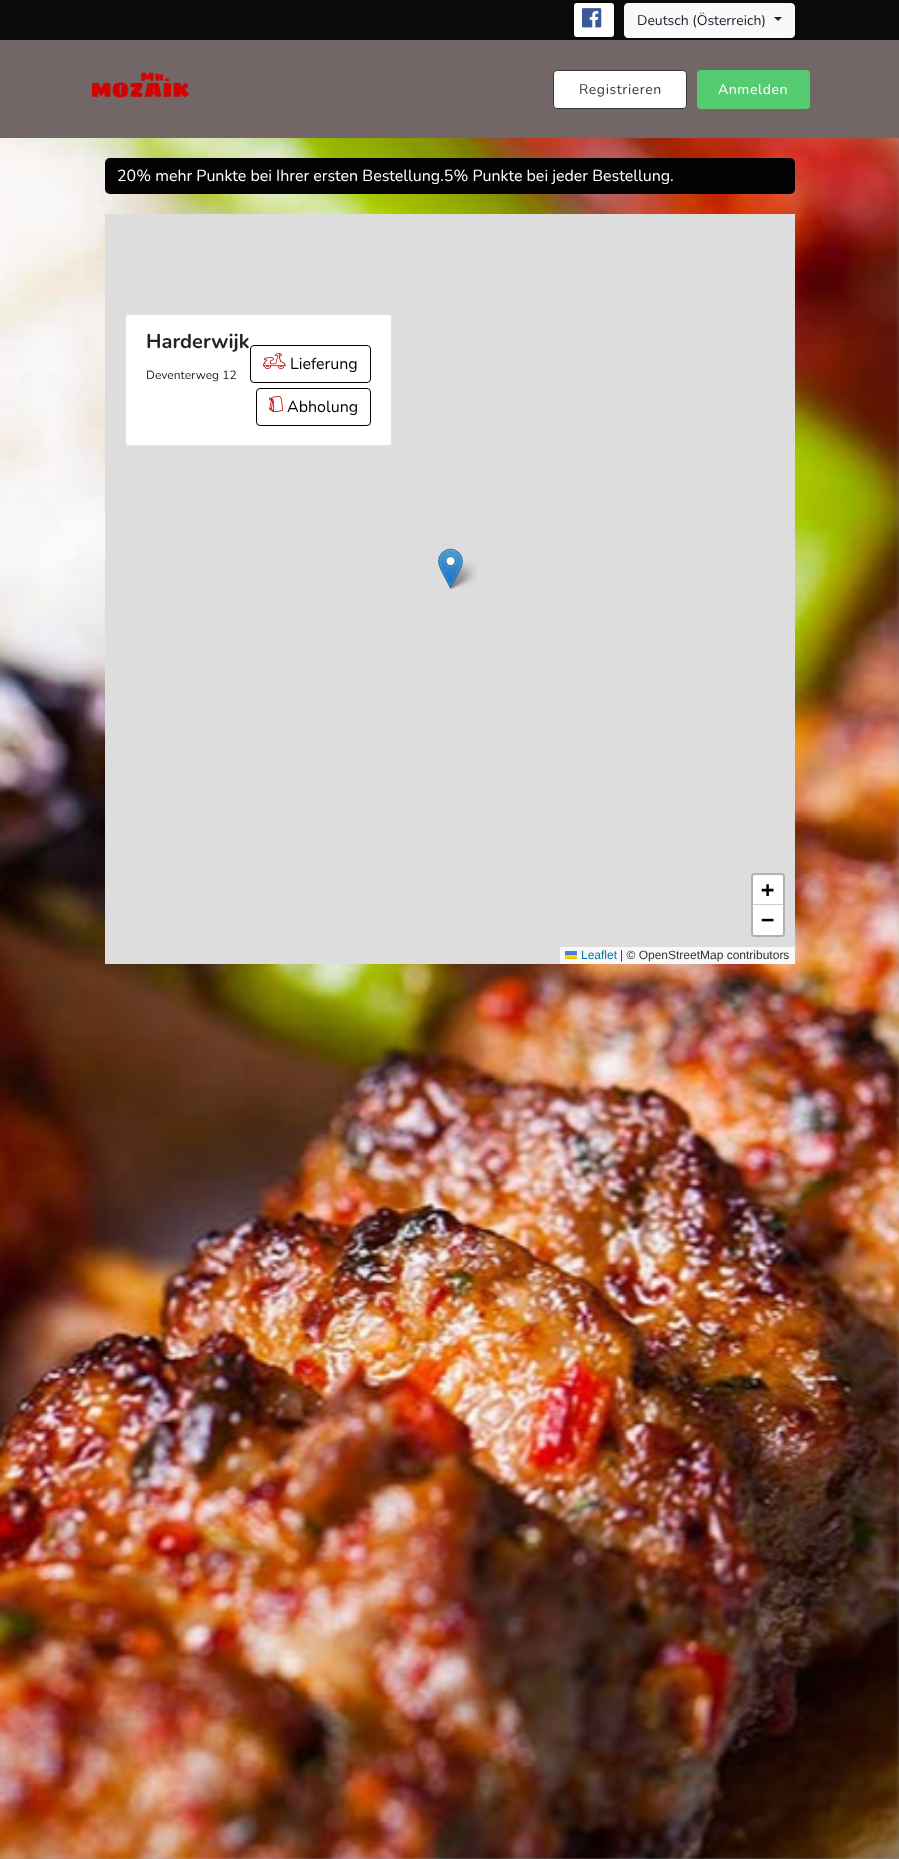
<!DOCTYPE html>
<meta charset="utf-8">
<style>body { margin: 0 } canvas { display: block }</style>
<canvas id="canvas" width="899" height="1859"></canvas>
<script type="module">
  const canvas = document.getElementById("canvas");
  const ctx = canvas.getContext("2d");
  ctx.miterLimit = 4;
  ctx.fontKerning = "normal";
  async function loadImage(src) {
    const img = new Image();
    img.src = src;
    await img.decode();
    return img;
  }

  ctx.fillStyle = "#999999";
  ctx.fillRect(0, 0, 899, 1859);
  ctx.fillStyle = "#0a0a0a";
  ctx.fillRect(0, 0, 899, 40);
  ctx.fillStyle = "#ffffff";
  ctx.beginPath();
  ctx.roundRect(574, 3, 40, 34, 3);
  ctx.fill();
  ctx.drawImage(await loadImage("img1.png"), 582, 8, 20, 20);
  ctx.fillStyle = "#f8f9fa";
  ctx.beginPath();
  ctx.roundRect(624.5, 3.5, 170, 34, 3.5);
  ctx.fill();
  ctx.strokeStyle = "#f8f9fa";
  ctx.stroke();
  ctx.font = "200 14px Nunito";
  ctx.fillStyle = "#212529";
  ctx.fillText("Deutsch (Österreich)", 637, 25);
  ctx.beginPath();
  ctx.moveTo(774, 17);
  ctx.lineTo(782, 17);
  ctx.lineTo(778, 21);
  ctx.closePath();
  ctx.fill();
  ctx.fillStyle = "#736666";
  ctx.fillRect(0, 40, 899, 98);
  ctx.drawImage(await loadImage("img2.png"), 91, 72, 99, 26);
  ctx.fillStyle = "#ffffff";
  ctx.beginPath();
  ctx.roundRect(553.5, 70.5, 133, 38, 3.5);
  ctx.fill();
  ctx.strokeStyle = "#343a40";
  ctx.stroke();
  ctx.letterSpacing = "0.6px";
  ctx.fillStyle = "#343a40";
  ctx.fillText("Registrieren", 579, 94);
  ctx.fillStyle = "#56cc71";
  ctx.beginPath();
  ctx.roundRect(697, 70, 113, 39, 4);
  ctx.fill();
  ctx.fillStyle = "#ffffff";
  ctx.fillText("Anmelden", 718, 94);
  ctx.drawImage(await loadImage("img3.png"), 0, 138, 899, 1721);
  ctx.fillStyle = "#030303";
  ctx.beginPath();
  ctx.roundRect(105, 158, 690, 36, 5);
  ctx.fill();
  ctx.letterSpacing = "0px";
  ctx.font = "200 16px Nunito";
  ctx.fillStyle = "#ffffff";
  ctx.fillText("20% mehr Punkte bei Ihrer ersten Bestellung.5% Punkte bei jeder Bestellung.", 117, 181);
  ctx.fillStyle = "#dddddd";
  ctx.fillRect(105, 214, 690, 750);
  ctx.fillStyle = "#ffffff";
  ctx.beginPath();
  ctx.roundRect(125, 314, 267, 133, 4);
  ctx.fill();
  ctx.fillStyle = "#e3e3e3";
  ctx.beginPath();
  ctx.moveTo(126, 442);
  ctx.lineTo(126, 443);
  ctx.bezierCurveTo(126, 445, 127, 446, 129, 446);
  ctx.lineTo(388, 446);
  ctx.bezierCurveTo(390, 446, 391, 445, 391, 443);
  ctx.lineTo(391, 442);
  ctx.bezierCurveTo(391, 444, 390, 445, 388, 445);
  ctx.lineTo(129, 445);
  ctx.bezierCurveTo(127, 445, 126, 444, 126, 442);
  ctx.closePath();
  ctx.fill();
  ctx.beginPath();
  ctx.roundRect(125.5, 314.5, 266, 132, 3.5);
  ctx.strokeStyle = "rgba(0, 0, 0, 0.12)";
  ctx.stroke();
  ctx.font = "200 20px 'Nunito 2'";
  ctx.fillStyle = "#212529";
  ctx.fillText("Harderwijk", 146, 348);
  ctx.font = "200 12px Nunito";
  ctx.fillText("Deventerweg 12", 146, 379);
  ctx.beginPath();
  ctx.roundRect(250.5, 345.5, 120, 37, 3.5);
  ctx.strokeStyle = "#030303";
  ctx.stroke();
  ctx.drawImage(await loadImage("img4.png"), 263, 353, 23, 16);
  ctx.font = "200 16px Nunito";
  ctx.fillStyle = "#000000";
  ctx.fillText("Lieferung", 290, 369);
  ctx.beginPath();
  ctx.roundRect(256.5, 388.5, 114, 37, 3.5);
  ctx.stroke();
  ctx.drawImage(await loadImage("img5.png"), 269, 396, 14, 16);
  ctx.fillText("Abholung", 287, 412);
  ctx.drawImage(await loadImage("img7.png"), 448, 561, 29, 28);
  ctx.drawImage(await loadImage("img6.png"), 438, 548, 25, 41);
  ctx.beginPath();
  ctx.roundRect(752, 874, 32, 62, 3);
  ctx.strokeStyle = "#b1b1b1";
  ctx.lineWidth = 2;
  ctx.stroke();
  ctx.fillStyle = "#ffffff";
  ctx.beginPath();
  ctx.roundRect(753, 875, 30, 30, [2, 2, 0, 0]);
  ctx.fill();
  ctx.fillStyle = "#cccccc";
  ctx.fillRect(753, 904, 30, 1);
  ctx.font = "bold 22px DejaVu Sans Mono";
  ctx.fillStyle = "#000000";
  ctx.fillText("+", 761, 897);
  ctx.fillStyle = "#ffffff";
  ctx.beginPath();
  ctx.roundRect(753, 905, 30, 30, [0, 0, 2, 2]);
  ctx.fill();
  ctx.fillStyle = "#000000";
  ctx.fillText("−", 761, 927);
  ctx.fillStyle = "#f8f8f8";
  ctx.fillRect(560, 947, 235, 17);
  ctx.font = "12px Liberation Sans";
  ctx.fillStyle = "#0078a8";
  ctx.fillText("Leaflet", 581, 959);
  ctx.fillStyle = "#4c7be1";
  ctx.fillRect(565, 951, 12, 4);
  ctx.fillStyle = "#ffd500";
  ctx.fillRect(565, 955, 12, 3);
  ctx.fillStyle = "#e0bc00";
  ctx.fillRect(565, 958, 12, 1);
  ctx.fillStyle = "#333333";
  ctx.fillText("| © OpenStreetMap contributors", 620, 959);
</script>
